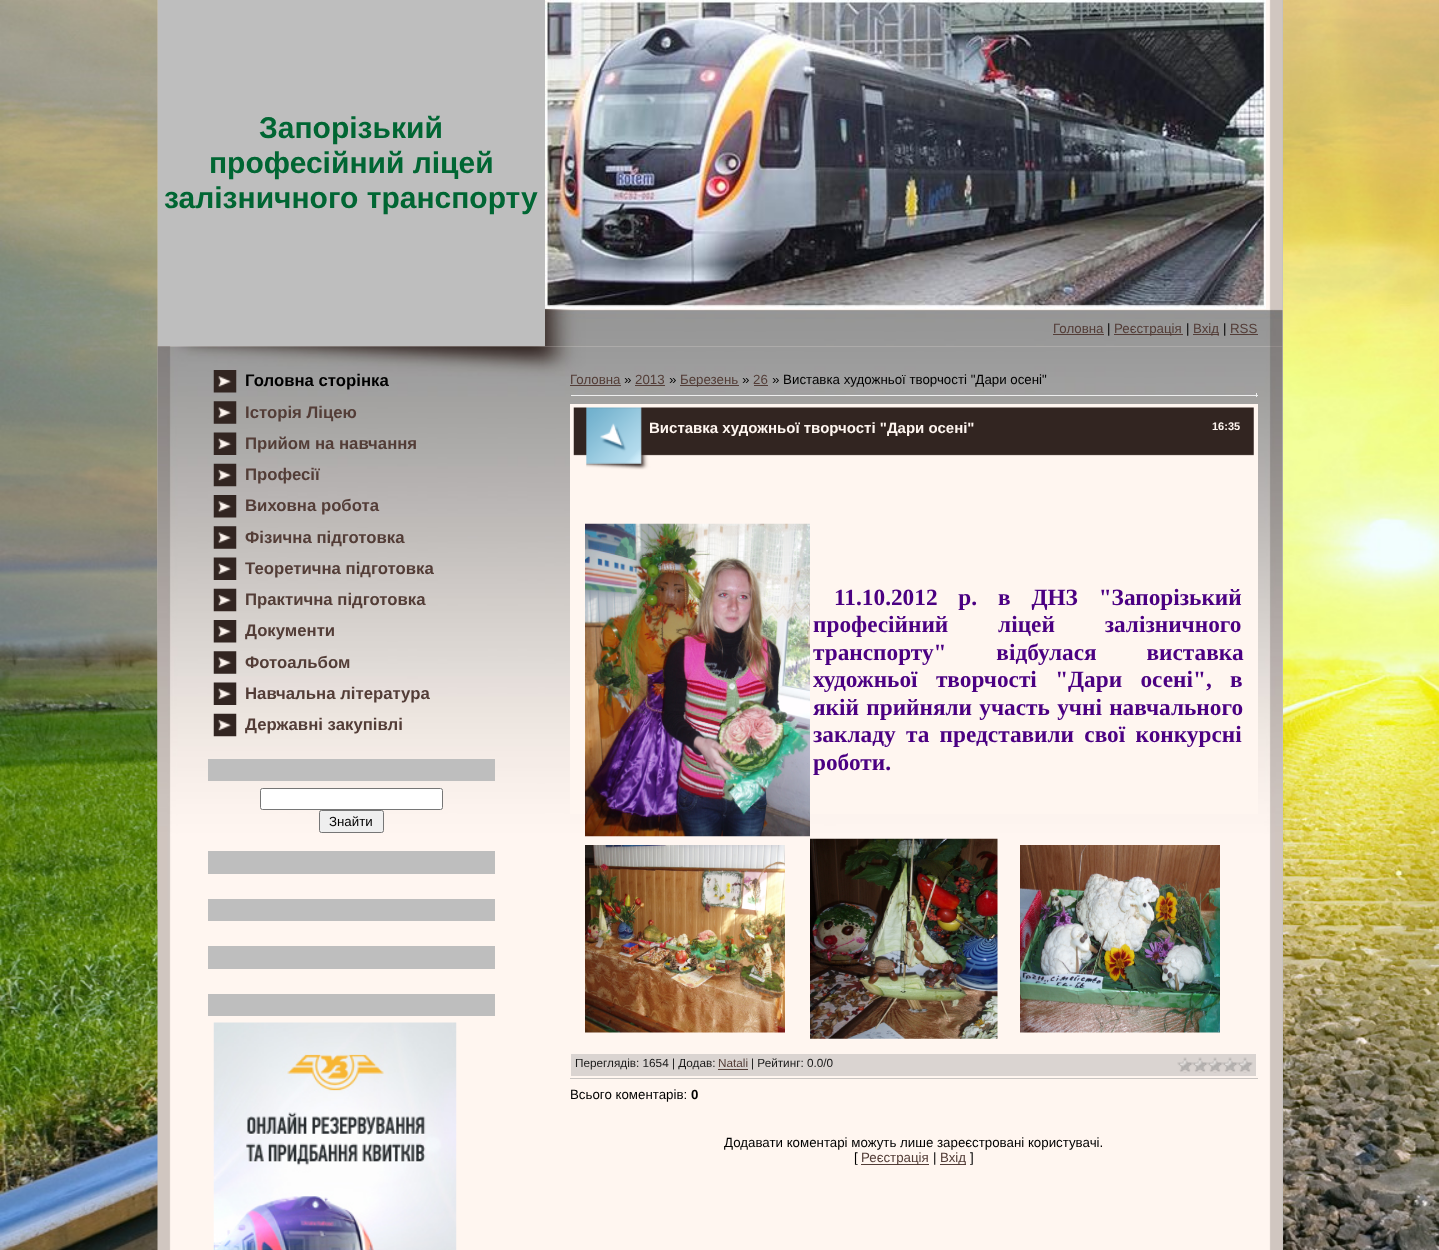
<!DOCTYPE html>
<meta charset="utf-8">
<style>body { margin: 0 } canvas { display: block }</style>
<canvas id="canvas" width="1439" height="1250"></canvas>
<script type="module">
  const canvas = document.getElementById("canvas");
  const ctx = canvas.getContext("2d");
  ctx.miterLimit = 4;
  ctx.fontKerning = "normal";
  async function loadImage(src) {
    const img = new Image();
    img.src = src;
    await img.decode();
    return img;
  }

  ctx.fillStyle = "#ffffff";
  ctx.fillRect(0, 0, 1439, 1250);
  ctx.drawImage(await loadImage("img1.png"), 0, 0, 1439, 1250);
  ctx.fillStyle = "#bebebe";
  ctx.fillRect(1282, 0, 1, 1250);
  ctx.drawImage(await loadImage("img2.png"), 157, 0, 1126, 1250);
  ctx.fillRect(158, 0, 387, 346);
  ctx.font = "bold 30px Liberation Sans";
  ctx.fillStyle = "#006633";
  ctx.fillText("Запорізький", 259, 138);
  ctx.fillText("професійний ліцей", 209, 173);
  ctx.fillText("залізничного транспорту", 164, 208);
  ctx.drawImage(await loadImage("img4.png"), 545, 308, 738, 39);
  ctx.drawImage(await loadImage("img3.png"), 545, 0, 721, 309);
  ctx.font = "13.3px Liberation Sans";
  ctx.fillStyle = "#533d37";
  ctx.fillText("Головна", 1053, 333);
  ctx.fillRect(1053, 334, 51, 1);
  ctx.fillStyle = "#000000";
  ctx.fillText("|", 1107, 333);
  ctx.fillStyle = "#533d37";
  ctx.fillRect(1114, 334, 69, 1);
  ctx.fillText("Реєстрація", 1114, 333);
  ctx.fillStyle = "#000000";
  ctx.fillText("|", 1186, 333);
  ctx.fillStyle = "#533d37";
  ctx.fillRect(1193, 334, 26, 1);
  ctx.fillText("Вхід", 1193, 333);
  ctx.fillStyle = "#000000";
  ctx.fillText("|", 1223, 333);
  ctx.fillStyle = "#533d37";
  ctx.fillText("RSS", 1230, 333);
  ctx.fillRect(1230, 334, 28, 1);
  ctx.drawImage(await loadImage("img5.png"), 157, 346, 388, 554);
  ctx.drawImage(await loadImage("img6.png"), 213, 370, 24, 23);
  ctx.font = "bold 16.75px Liberation Sans";
  ctx.fillStyle = "#000000";
  ctx.fillText("Головна сторінка", 245, 386);
  ctx.drawImage(await loadImage("img7.png"), 213, 401, 24, 23);
  ctx.fillStyle = "#533d37";
  ctx.fillText("Історія Ліцею", 245, 418);
  ctx.drawImage(await loadImage("img8.png"), 213, 432, 24, 23);
  ctx.fillText("Прийом на навчання", 245, 449);
  ctx.drawImage(await loadImage("img9.png"), 213, 463, 24, 24);
  ctx.fillText("Професії", 245, 480);
  ctx.drawImage(await loadImage("img10.png"), 213, 495, 24, 23);
  ctx.fillText("Виховна робота", 245, 511);
  ctx.drawImage(await loadImage("img11.png"), 213, 526, 24, 23);
  ctx.fillText("Фізична підготовка", 245, 543);
  ctx.drawImage(await loadImage("img12.png"), 213, 557, 24, 23);
  ctx.fillText("Теоретична підготовка", 245, 574);
  ctx.drawImage(await loadImage("img13.png"), 213, 588, 24, 24);
  ctx.fillText("Практична підготовка", 245, 605);
  ctx.drawImage(await loadImage("img14.png"), 213, 620, 24, 23);
  ctx.fillText("Документи", 245, 636);
  ctx.drawImage(await loadImage("img15.png"), 213, 651, 24, 23);
  ctx.fillText("Фотоальбом", 245, 668);
  ctx.drawImage(await loadImage("img16.png"), 213, 682, 24, 23);
  ctx.fillText("Навчальна література", 245, 699);
  ctx.drawImage(await loadImage("img17.png"), 213, 713, 24, 24);
  ctx.fillText("Державні закупівлі", 245, 730);
  ctx.fillStyle = "#bebebe";
  ctx.fillRect(208, 759, 287, 22);
  ctx.fillStyle = "#ffffff";
  ctx.beginPath();
  ctx.roundRect(260.5, 788.5, 182, 21, 2);
  ctx.fill();
  ctx.strokeStyle = "#767676";
  ctx.stroke();
  ctx.fillStyle = "#efefef";
  ctx.beginPath();
  ctx.roundRect(319.5, 810.5, 64, 22, 2);
  ctx.fill();
  ctx.stroke();
  ctx.font = "13.3px Liberation Sans";
  ctx.fillStyle = "#000000";
  ctx.fillText("Знайти", 329, 826);
  ctx.fillStyle = "#bebebe";
  ctx.fillRect(208, 851, 287, 23);
  ctx.fillRect(208, 899, 287, 22);
  ctx.fillRect(208, 946, 287, 23);
  ctx.fillRect(208, 994, 287, 22);
  ctx.drawImage(await loadImage("img18.png"), 213, 1022, 244, 228);
  ctx.drawImage(await loadImage("img19.png"), 545, 346, 738, 554);
  ctx.fillStyle = "#533d37";
  ctx.fillText("Головна", 570, 384);
  ctx.fillRect(570, 385, 51, 1);
  ctx.fillStyle = "#000000";
  ctx.fillText("»", 624, 384);
  ctx.fillStyle = "#533d37";
  ctx.fillText("2013", 635, 384);
  ctx.fillRect(635, 385, 30, 1);
  ctx.fillStyle = "#000000";
  ctx.fillText("»", 669, 384);
  ctx.fillStyle = "#533d37";
  ctx.fillRect(680, 385, 59, 1);
  ctx.fillText("Березень", 680, 384);
  ctx.fillStyle = "#000000";
  ctx.fillText("»", 742, 384);
  ctx.fillStyle = "#533d37";
  ctx.fillText("26", 753, 384);
  ctx.fillRect(754, 385, 14, 1);
  ctx.fillStyle = "#000000";
  ctx.fillText("» Виставка художньої творчості \"Дари осені\"", 772, 384);
  ctx.fillStyle = "#9f9f9f";
  ctx.fillRect(586, 393, 672, 1);
  ctx.fillStyle = "#eeeeee";
  ctx.fillRect(1256, 393, 1, 4);
  ctx.fillRect(570, 395, 688, 1);
  ctx.fillStyle = "#9f9f9f";
  ctx.fillRect(570, 393, 1, 4);
  ctx.fillStyle = "#fff6f0";
  ctx.fillRect(570, 404, 688, 410);
  ctx.fillStyle = "#c8c4c1";
  ctx.fillRect(570, 1078, 688, 1);
  ctx.drawImage(await loadImage("img20.png"), 573, 407, 681, 63);
  ctx.font = "bold 15px Liberation Sans";
  ctx.fillStyle = "#fff6f0";
  ctx.fillText("Виставка художньої творчості \"Дари осені\"", 649, 433);
  ctx.font = "bold 11px Liberation Sans";
  ctx.fillText("16:35", 1212, 430);
  ctx.drawImage(await loadImage("img21.png"), 585, 523, 225, 314);
  ctx.wordSpacing = "15px";
  ctx.font = "bold 23.3px Liberation Serif";
  ctx.fillStyle = "#4b0082";
  ctx.fillText("11.10.2012 р. в ДНЗ \"Запорізький", 834, 605);
  ctx.wordSpacing = "44px";
  ctx.fillText("професійний ліцей залізничного", 813, 632);
  ctx.fillText("транспорту\" відбулася виставка", 813, 660);
  ctx.wordSpacing = "12.5px";
  ctx.fillText("художньої творчості \"Дари осені\", в", 813, 687);
  ctx.wordSpacing = "1.5px";
  ctx.fillText("якій прийняли участь учні навчального", 813, 715);
  ctx.wordSpacing = "4.5px";
  ctx.fillText("закладу та представили свої конкурсні", 813, 742);
  ctx.wordSpacing = "0px";
  ctx.fillText("роботи.", 813, 770);
  ctx.drawImage(await loadImage("img22.png"), 585, 845, 200, 188);
  ctx.drawImage(await loadImage("img23.png"), 810, 838, 188, 201);
  ctx.drawImage(await loadImage("img24.png"), 1020, 845, 200, 188);
  ctx.fillStyle = "#dad4d1";
  ctx.fillRect(571, 1054, 685, 22);
  ctx.font = "11.75px Liberation Sans";
  ctx.fillStyle = "#1a1a1a";
  ctx.fillText("Переглядів: 1654 | Додав:", 575, 1067);
  ctx.fillStyle = "#533d37";
  ctx.fillText("Natali", 718, 1067);
  ctx.fillRect(718, 1069, 30, 1);
  ctx.fillStyle = "#1a1a1a";
  ctx.fillText("| Рейтинг: 0.0/0", 751, 1067);
  ctx.drawImage(await loadImage("img25.png"), 1177, 1057, 76, 16);
  ctx.font = "13.3px Liberation Sans";
  ctx.fillStyle = "#000000";
  ctx.fillText("Всього коментарів:", 570, 1099);
  ctx.font = "bold 13.3px Liberation Sans";
  ctx.fillText("0", 691, 1099);
  ctx.font = "13.3px Liberation Sans";
  ctx.fillText("Додавати коментарі можуть лише зареєстровані користувачі.", 724, 1147);
  ctx.fillText("[", 854, 1162);
  ctx.fillStyle = "#533d37";
  ctx.fillRect(861, 1164, 68, 1);
  ctx.fillText("Реєстрація", 861, 1162);
  ctx.fillStyle = "#000000";
  ctx.fillText("|", 933, 1162);
  ctx.fillStyle = "#533d37";
  ctx.fillRect(940, 1164, 26, 1);
  ctx.fillText("Вхід", 940, 1162);
  ctx.fillStyle = "#000000";
  ctx.fillText("]", 970, 1162);
</script>
